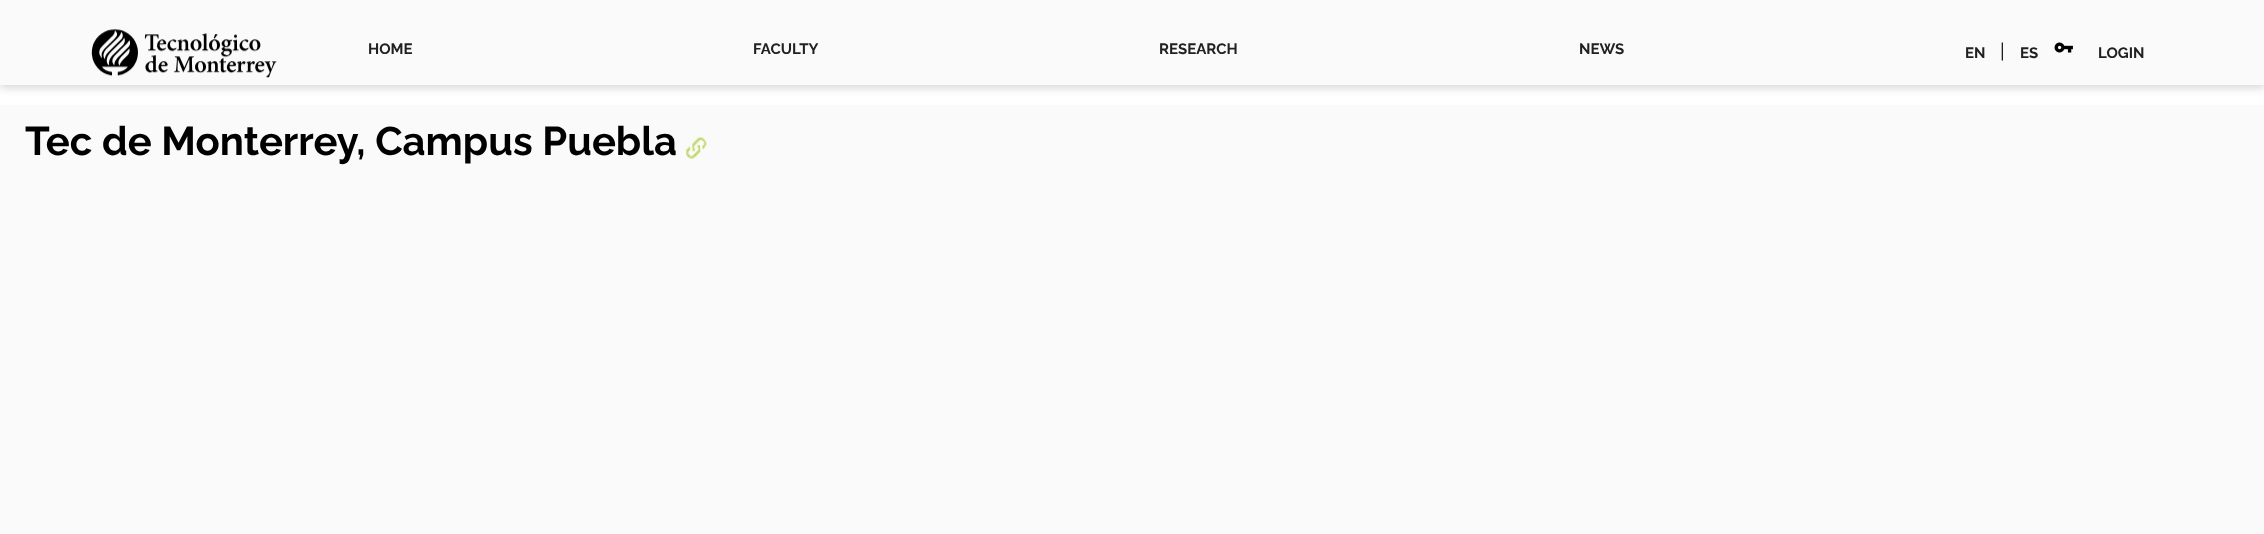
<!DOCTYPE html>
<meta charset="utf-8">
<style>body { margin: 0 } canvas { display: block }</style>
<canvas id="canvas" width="2264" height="534"></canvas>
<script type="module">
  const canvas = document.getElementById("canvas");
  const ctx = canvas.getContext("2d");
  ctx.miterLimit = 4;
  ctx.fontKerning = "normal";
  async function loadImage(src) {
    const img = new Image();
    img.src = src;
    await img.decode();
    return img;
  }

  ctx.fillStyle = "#ffffff";
  ctx.fillRect(0, 0, 2264, 534);
  ctx.fillStyle = "#fafafa";
  ctx.fillRect(0, 105, 2264, 429);
  ctx.fillStyle = "rgba(33, 33, 33, 0.18)";
  ctx.filter = "blur(4px)";
  ctx.beginPath();
  ctx.rect(0, 3, 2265, 85);
  ctx.fill();
  ctx.filter = "none";
  ctx.fillStyle = "#fafafa";
  ctx.fillRect(0, 0, 2264, 85);
  ctx.drawImage(await loadImage("img1.png"), 91, 29, 186, 49);
  ctx.font = "bold 15px Raleway";
  ctx.fillStyle = "#212121";
  ctx.fillText("HOME", 368, 54);
  ctx.fillText("FACULTY", 753, 54);
  ctx.fillText("RESEARCH", 1159, 54);
  ctx.fillText("NEWS", 1579, 54);
  ctx.fillText("EN", 1965, 58);
  ctx.font = "20px Raleway";
  ctx.fillStyle = "#000000";
  ctx.fillText("|", 2000, 58);
  ctx.font = "bold 15px Raleway";
  ctx.fillStyle = "#212121";
  ctx.fillText("ES", 2020, 58);
  ctx.drawImage(await loadImage("img2.png"), 2054, 42, 19, 11);
  ctx.fillText("LOGIN", 2098, 58);
  ctx.font = "bold 40px Raleway";
  ctx.fillStyle = "#000000";
  ctx.fillText("Tec de Monterrey, Campus Puebla", 25, 155);
  ctx.drawImage(await loadImage("img3.png"), 686, 137, 21, 22);
</script>
